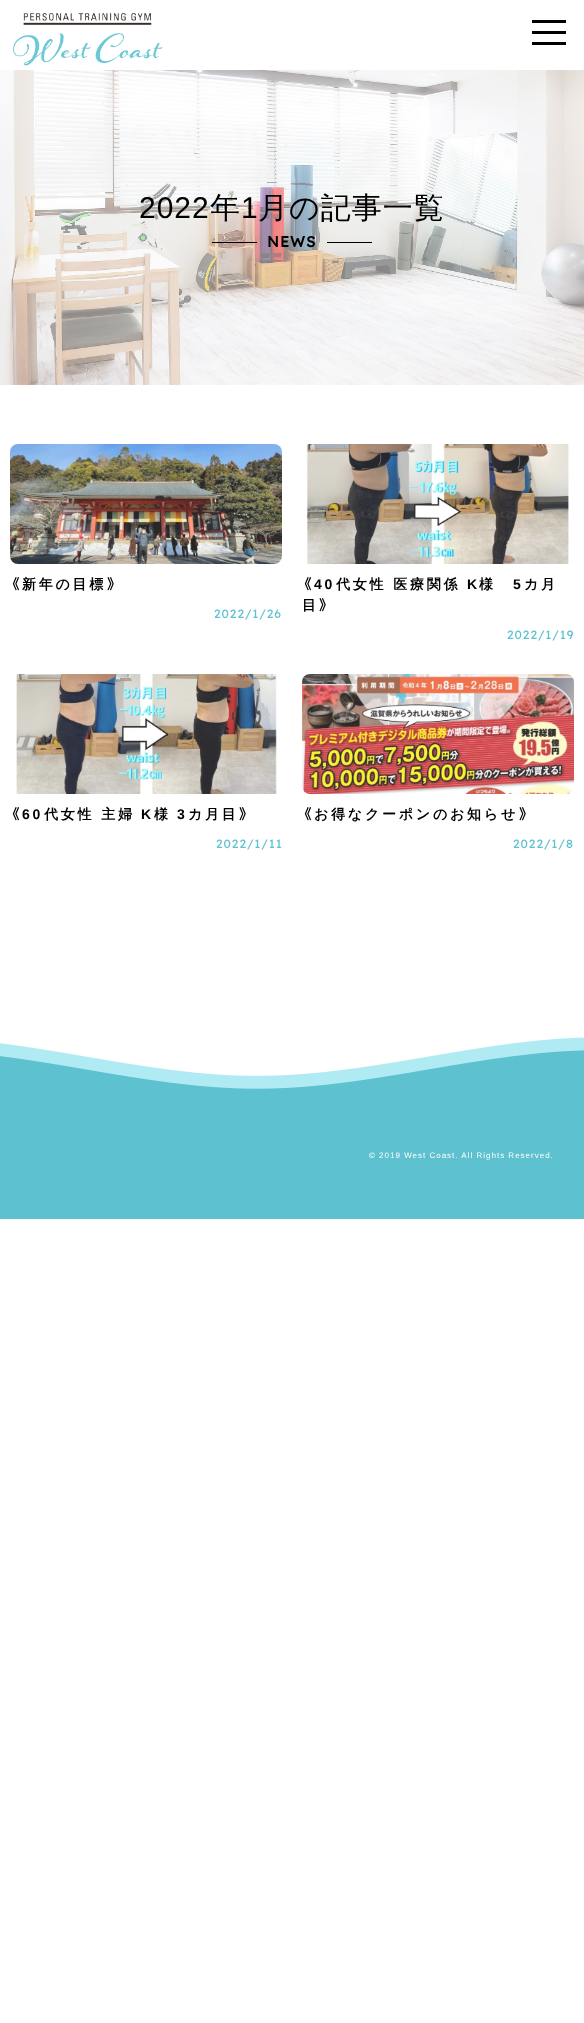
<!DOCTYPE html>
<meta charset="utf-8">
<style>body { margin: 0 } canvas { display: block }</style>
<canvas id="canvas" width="584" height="2023"></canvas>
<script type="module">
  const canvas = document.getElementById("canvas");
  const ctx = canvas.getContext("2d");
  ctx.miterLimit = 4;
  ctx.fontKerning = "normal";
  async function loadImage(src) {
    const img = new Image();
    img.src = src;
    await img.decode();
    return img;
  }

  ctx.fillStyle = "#ffffff";
  ctx.fillRect(0, 0, 584, 2023);
  ctx.drawImage(await loadImage("img1.png"), 13, 13, 150, 53);
  ctx.fillStyle = "#000000";
  ctx.fillRect(532, 20, 34, 3);
  ctx.fillRect(532, 31, 34, 3);
  ctx.fillRect(532, 42, 34, 3);
  ctx.drawImage(await loadImage("img2.png"), 0, 70, 584, 315);
  ctx.letterSpacing = "1px";
  ctx.font = "30px Liberation Sans";
  ctx.fillText("2022", 139, 218);
  ctx.font = "500 30px WenQuanYi Zen Hei";
  ctx.fillText("年", 210, 218);
  ctx.font = "30px Liberation Sans";
  ctx.fillText("1", 241, 218);
  ctx.font = "500 30px WenQuanYi Zen Hei";
  ctx.fillText("月の記事一覧", 258, 218);
  ctx.fillRect(212, 242, 45, 1);
  ctx.font = "bold 15px Lexend Deca";
  ctx.fillText("NEWS", 267, 247);
  ctx.fillRect(327, 242, 45, 1);
  ctx.drawImage(await loadImage("img3.png"), 10, 444, 272, 120);
  ctx.letterSpacing = "2.75px";
  ctx.font = "bold 14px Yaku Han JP";
  ctx.fillText("《", 10, 589);
  ctx.font = "bold 14px WenQuanYi Zen Hei";
  ctx.fillText("新年の目標", 22, 589);
  ctx.font = "bold 14px Yaku Han JP";
  ctx.fillText("》", 107, 589);
  ctx.letterSpacing = "1px";
  ctx.font = "12px Lexend Deca";
  ctx.fillStyle = "#5dc1cf";
  ctx.fillText("2022/1/26", 214, 618);
  ctx.drawImage(await loadImage("img4.png"), 306, 444, 263, 120);
  ctx.letterSpacing = "2.75px";
  ctx.font = "bold 14px Yaku Han JP";
  ctx.fillStyle = "#000000";
  ctx.fillText("《", 302, 589);
  ctx.font = "bold 14px Liberation Sans";
  ctx.fillText("40", 314, 589);
  ctx.font = "bold 14px WenQuanYi Zen Hei";
  ctx.fillText("代女性 医療関係", 336, 589);
  ctx.font = "bold 14px Liberation Sans";
  ctx.fillText("K", 467, 589);
  ctx.font = "bold 14px WenQuanYi Zen Hei";
  ctx.fillText("様", 479, 589);
  ctx.font = "bold 14px Liberation Sans";
  ctx.fillText("5", 513, 589);
  ctx.font = "bold 14px WenQuanYi Zen Hei";
  ctx.fillText("カ月", 524, 589);
  ctx.fillText("目", 302, 610);
  ctx.font = "bold 14px Yaku Han JP";
  ctx.fillText("》", 319, 610);
  ctx.letterSpacing = "1px";
  ctx.font = "12px Lexend Deca";
  ctx.fillStyle = "#5dc1cf";
  ctx.fillText("2022/1/19", 507, 639);
  ctx.drawImage(await loadImage("img5.png"), 15, 674, 262, 120);
  ctx.letterSpacing = "2.75px";
  ctx.font = "bold 14px Yaku Han JP";
  ctx.fillStyle = "#000000";
  ctx.fillText("《", 10, 819);
  ctx.font = "bold 14px Liberation Sans";
  ctx.fillText("60", 22, 819);
  ctx.font = "bold 14px WenQuanYi Zen Hei";
  ctx.fillText("代女性 主婦", 44, 819);
  ctx.font = "bold 14px Liberation Sans";
  ctx.fillText("K", 141, 819);
  ctx.font = "bold 14px WenQuanYi Zen Hei";
  ctx.fillText("様", 154, 819);
  ctx.font = "bold 14px Liberation Sans";
  ctx.fillText("3", 177, 819);
  ctx.font = "bold 14px WenQuanYi Zen Hei";
  ctx.fillText("カ月目", 188, 819);
  ctx.font = "bold 14px Yaku Han JP";
  ctx.fillText("》", 239, 819);
  ctx.letterSpacing = "1px";
  ctx.font = "12px Lexend Deca";
  ctx.fillStyle = "#5dc1cf";
  ctx.fillText("2022/1/11", 216, 848);
  ctx.drawImage(await loadImage("img6.png"), 302, 674, 272, 120);
  ctx.letterSpacing = "2.75px";
  ctx.font = "bold 14px Yaku Han JP";
  ctx.fillStyle = "#000000";
  ctx.fillText("《", 302, 819);
  ctx.font = "bold 14px WenQuanYi Zen Hei";
  ctx.fillText("お得なクーポンのお知らせ", 314, 819);
  ctx.font = "bold 14px Yaku Han JP";
  ctx.fillText("》", 519, 819);
  ctx.letterSpacing = "1px";
  ctx.font = "12px Lexend Deca";
  ctx.fillStyle = "#5dc1cf";
  ctx.fillText("2022/1/8", 513, 848);
  ctx.fillRect(0, 1093, 584, 126);
  ctx.drawImage(await loadImage("img7.png"), 0, 1037, 584, 56);
  ctx.font = "8px Liberation Sans";
  ctx.fillStyle = "#ffffff";
  ctx.fillText("© 2019 West Coast. All Rights Reserved.", 369, 1158);
</script>
